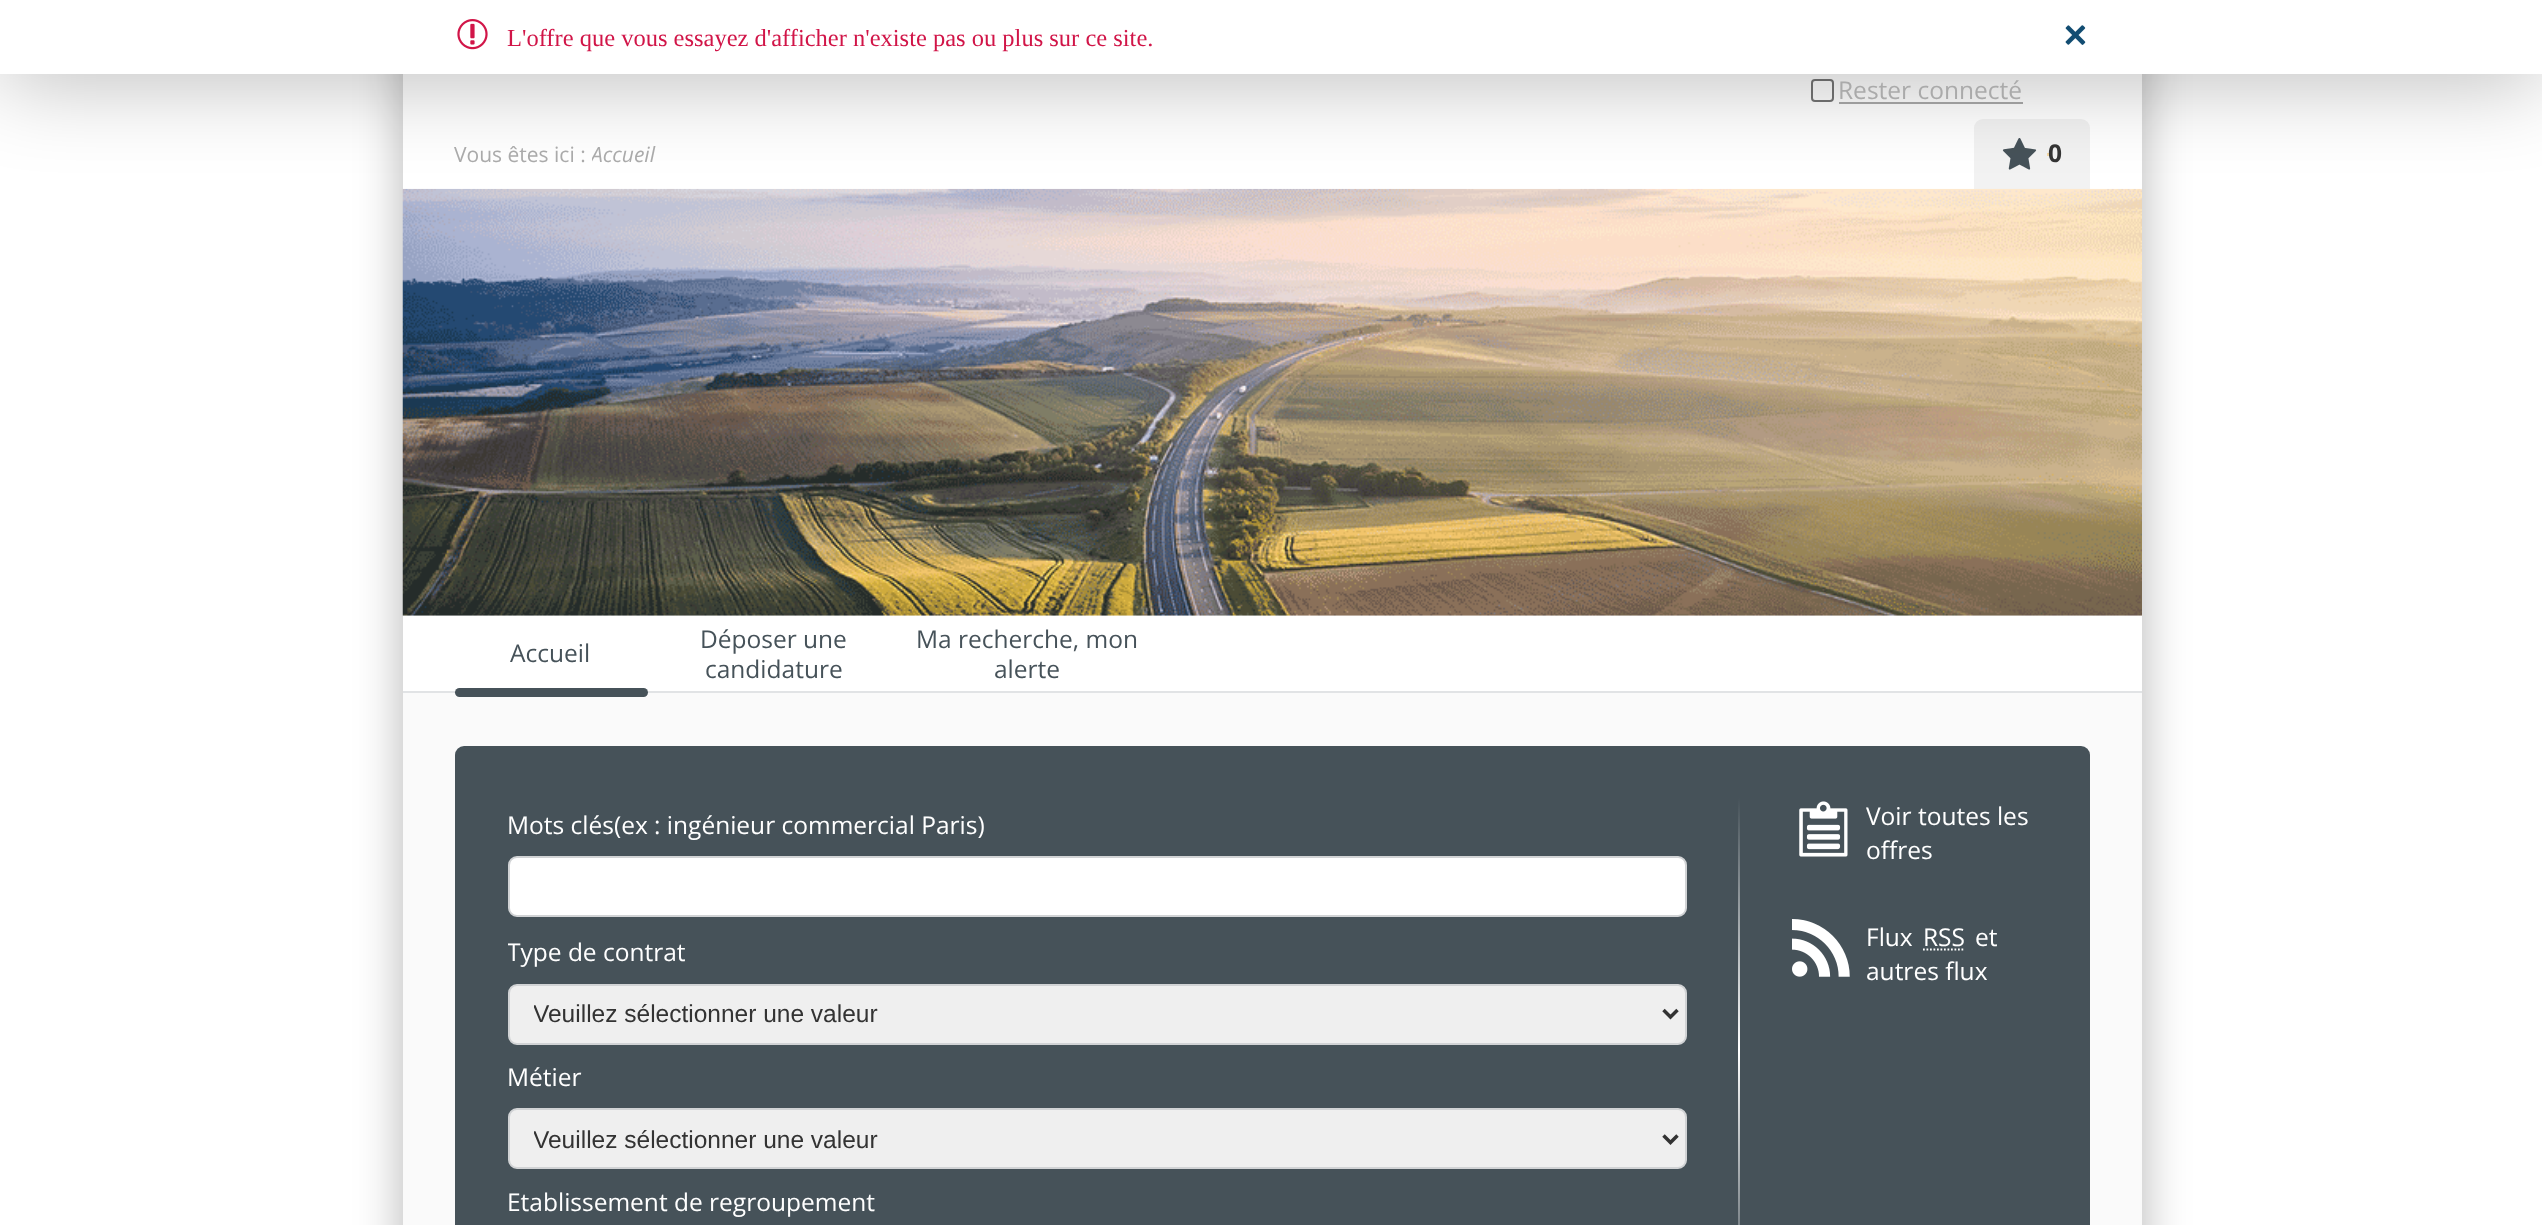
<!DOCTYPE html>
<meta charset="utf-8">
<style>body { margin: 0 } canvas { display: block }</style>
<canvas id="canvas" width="2542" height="1225"></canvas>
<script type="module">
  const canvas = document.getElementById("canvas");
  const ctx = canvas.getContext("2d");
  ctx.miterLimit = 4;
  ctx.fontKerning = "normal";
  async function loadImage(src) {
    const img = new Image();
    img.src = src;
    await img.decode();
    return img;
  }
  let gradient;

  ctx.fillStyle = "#ffffff";
  ctx.fillRect(0, 0, 2542, 1225);
  ctx.save();
  ctx.beginPath();
  ctx.moveTo(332, 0);
  ctx.lineTo(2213, 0);
  ctx.lineTo(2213, 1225);
  ctx.lineTo(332, 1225);
  ctx.closePath();
  ctx.moveTo(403, -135);
  ctx.lineTo(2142, -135);
  ctx.lineTo(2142, 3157);
  ctx.lineTo(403, 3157);
  ctx.closePath();
  ctx.clip("evenodd");
  ctx.fillStyle = "rgba(0, 0, 0, 0.25)";
  ctx.filter = "blur(22px)";
  ctx.beginPath();
  ctx.rect(399, -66, 1747, 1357);
  ctx.fill();
  ctx.filter = "none";
  ctx.restore();
  ctx.fillStyle = "#fafafa";
  ctx.fillRect(403, 693, 1739, 532);
  ctx.beginPath();
  ctx.roundRect(1812, 80, 21, 21, 3);
  ctx.strokeStyle = "#767676";
  ctx.lineWidth = 2;
  ctx.stroke();
  ctx.fillStyle = "#aaaaaa";
  ctx.fillRect(1839, 102, 184, 2);
  ctx.fillStyle = "#f2f2f2";
  ctx.beginPath();
  ctx.roundRect(1974, 119, 116, 70, [9, 9, 0, 0]);
  ctx.fill();
  ctx.drawImage(await loadImage("img5.png"), 2002, 138, 35, 32);
  ctx.fillStyle = "#f3d8a5";
  ctx.fillRect(2047, 153, 3, 3);
  ctx.drawImage(await loadImage("img6.png"), 402, 188, 1740, 428);
  ctx.fillStyle = "rgba(0, 0, 0, 0.3)";
  ctx.filter = "blur(44px)";
  ctx.beginPath();
  ctx.rect(0, 4, 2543, 73);
  ctx.fill();
  ctx.filter = "none";
  ctx.fillStyle = "#ffffff";
  ctx.fillRect(0, 0, 2542, 74);
  ctx.drawImage(await loadImage("img1.png"), 457, 19, 31, 31);
  ctx.font = "24.5px Liberation Serif";
  ctx.fillStyle = "#d11548";
  ctx.fillText("L'offre que vous essayez d'afficher n'existe pas ou plus sur ce site.", 507, 46);
  ctx.drawImage(await loadImage("img2.png"), 2065, 25, 21, 20);
  ctx.fillStyle = "#465259";
  ctx.beginPath();
  ctx.roundRect(455, 746, 1635, 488, 9);
  ctx.fill();
  ctx.font = "24.5px Open Sans";
  ctx.fillStyle = "#ffffff";
  ctx.fillText("Mots clés(ex : ingénieur commercial Paris)", 507, 834);
  ctx.beginPath();
  ctx.roundRect(509, 857, 1177, 59, 8);
  ctx.fill();
  ctx.strokeStyle = "#d1d3d5";
  ctx.stroke();
  ctx.save();
  ctx.beginPath();
  ctx.rect(508, 935, 1179, 35);
  ctx.clip();
  ctx.fillText("Type de contrat", 507, 961);
  ctx.restore();
  ctx.fillStyle = "#efefef";
  ctx.beginPath();
  ctx.roundRect(509, 985, 1177, 59, 8);
  ctx.fill();
  ctx.stroke();
  ctx.beginPath();
  ctx.moveTo(1663.5, 1010);
  ctx.lineTo(1670.5, 1017);
  ctx.lineTo(1677.5, 1010);
  ctx.strokeStyle = "#333333";
  ctx.lineWidth = 3.5;
  ctx.stroke();
  ctx.save();
  ctx.beginPath();
  ctx.rect(534, 998, 1106, 31);
  ctx.clip();
  ctx.font = "24.5px Liberation Sans";
  ctx.fillStyle = "#333333";
  ctx.fillText("Veuillez sélectionner une valeur", 533, 1022);
  ctx.restore();
  gradient = ctx.createLinearGradient(1739, 798, 1739, 1050);
  gradient.addColorStop(0, "#465259");
  gradient.addColorStop(1, "#ffffff");
  ctx.fillStyle = gradient;
  ctx.fillRect(1738, 798, 2, 252);
  ctx.fillStyle = "#ffffff";
  ctx.fillText("Métier", 507, 1086);
  ctx.fillStyle = "#efefef";
  ctx.beginPath();
  ctx.roundRect(509, 1109, 1177, 59, 8);
  ctx.fill();
  ctx.strokeStyle = "#d1d3d5";
  ctx.lineWidth = 2;
  ctx.stroke();
  ctx.beginPath();
  ctx.moveTo(1663.5, 1135.5);
  ctx.lineTo(1670.5, 1142.5);
  ctx.lineTo(1677.5, 1135.5);
  ctx.strokeStyle = "#333333";
  ctx.lineWidth = 3.5;
  ctx.stroke();
  ctx.save();
  ctx.beginPath();
  ctx.rect(534, 1124, 1106, 31);
  ctx.clip();
  ctx.font = "24.5px Liberation Sans";
  ctx.fillStyle = "#333333";
  ctx.fillText("Veuillez sélectionner une valeur", 533, 1148);
  ctx.restore();
  ctx.fillStyle = "#ffffff";
  ctx.fillText("Etablissement de regroupement", 507, 1211);
  gradient = ctx.createLinearGradient(1739, 1050, 1739, 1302);
  gradient.addColorStop(0, "#ffffff");
  gradient.addColorStop(1, "#465259");
  ctx.fillStyle = gradient;
  ctx.fillRect(1738, 1050, 2, 175);
  ctx.drawImage(await loadImage("img3.png"), 1799, 801, 49, 56);
  ctx.fillStyle = "#ffffff";
  ctx.fillText("Voir toutes les", 1866, 825);
  ctx.fillText("offres", 1866, 859);
  ctx.drawImage(await loadImage("img4.png"), 1792, 919, 58, 58);
  ctx.fillText("Flux", 1866, 946);
  ctx.fillText("RSS", 1923, 946);
  ctx.beginPath();
  ctx.moveTo(1923, 949.5);
  ctx.lineTo(1965, 949.5);
  ctx.strokeStyle = "#ffffff";
  ctx.lineWidth = 1.8;
  ctx.setLineDash([1.75, 1.75]);
  ctx.stroke();
  ctx.fillText("et", 1975, 946);
  ctx.fillText("autres flux", 1866, 980);
  ctx.fillStyle = "#e1e3e5";
  ctx.fillRect(403, 691, 1739, 2);
  ctx.fillStyle = "#465259";
  ctx.fillText("Accueil", 510, 662);
  ctx.beginPath();
  ctx.roundRect(455, 688, 193, 9, 4.5);
  ctx.fill();
  ctx.fillText("Déposer une", 700, 648);
  ctx.fillText("candidature", 705, 678);
  ctx.fillText("Ma recherche, mon", 916, 648);
  ctx.fillText("alerte", 994, 678);
  ctx.fillStyle = "#aaaaaa";
  ctx.fillText("Rester connecté", 1838, 99);
  ctx.font = "21px Open Sans";
  ctx.fillText("Vous êtes ici :", 454, 162);
  ctx.save();
  ctx.beginPath();
  ctx.rect(592, 142, 89, 30);
  ctx.clip();
  ctx.font = "italic 21px Open Sans";
  ctx.fillText("Accueil", 591, 162);
  ctx.restore();
  ctx.font = "bold 24.5px Open Sans";
  ctx.fillStyle = "#333333";
  ctx.fillText("0", 2048, 162);
</script>
